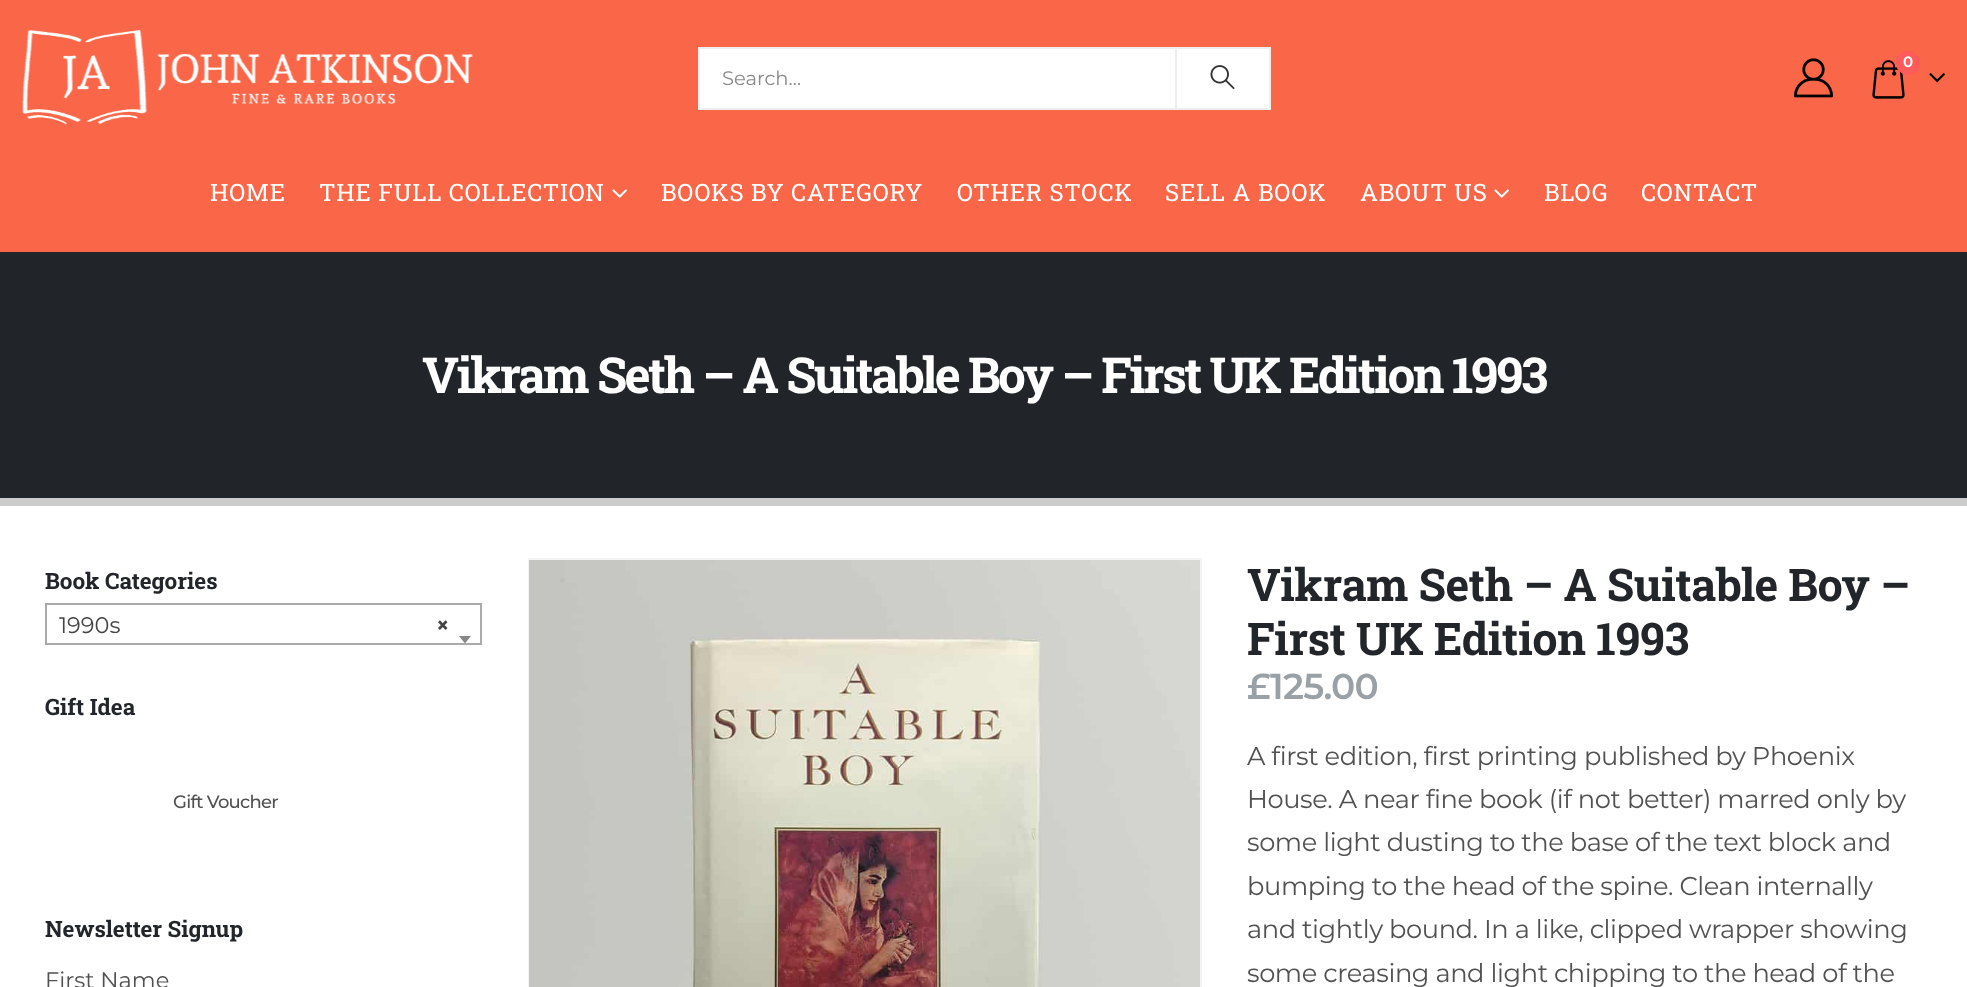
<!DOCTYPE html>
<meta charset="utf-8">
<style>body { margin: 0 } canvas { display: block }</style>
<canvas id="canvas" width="1967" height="987"></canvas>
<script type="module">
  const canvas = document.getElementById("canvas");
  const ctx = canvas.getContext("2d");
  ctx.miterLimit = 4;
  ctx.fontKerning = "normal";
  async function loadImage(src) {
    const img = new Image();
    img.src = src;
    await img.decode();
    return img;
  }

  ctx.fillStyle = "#ffffff";
  ctx.fillRect(0, 0, 1967, 987);
  ctx.fillStyle = "#f96648";
  ctx.fillRect(0, 0, 1967, 252);
  ctx.drawImage(await loadImage("img1.png"), 22, 30, 451, 95);
  ctx.drawImage(await loadImage("img2.png"), 1794, 58, 39, 40);
  ctx.drawImage(await loadImage("img3.png"), 1872, 60, 33, 39);
  ctx.fillStyle = "#ff5b5b";
  ctx.beginPath();
  ctx.arc(1908, 63, 12, 0, Math.PI * 2);
  ctx.fill();
  ctx.font = "600 15px Montserrat";
  ctx.fillStyle = "#ffffff";
  ctx.fillText("0", 1903, 67);
  ctx.drawImage(await loadImage("img4.png"), 1929, 73, 16, 10);
  ctx.beginPath();
  ctx.rect(699, 48, 571, 61);
  ctx.fill();
  ctx.strokeStyle = "#eeeeee";
  ctx.lineWidth = 2;
  ctx.stroke();
  ctx.fillStyle = "#eeeeee";
  ctx.fillRect(1175, 48, 2, 60);
  ctx.font = "19.5px Montserrat";
  ctx.fillStyle = "#888888";
  ctx.fillText("Search…", 722, 85);
  ctx.drawImage(await loadImage("img5.png"), 1210, 65, 25, 25);
  ctx.letterSpacing = "0.75px";
  ctx.font = "24px Roboto Slab";
  ctx.fillStyle = "#ffffff";
  ctx.fillText("HOME", 210, 201);
  ctx.fillText("THE FULL COLLECTION", 319, 201);
  ctx.drawImage(await loadImage("img6.png"), 612, 189, 15, 9);
  ctx.fillText("BOOKS BY CATEGORY", 661, 201);
  ctx.fillText("OTHER STOCK", 957, 201);
  ctx.fillText("SELL A BOOK", 1165, 201);
  ctx.fillText("ABOUT US", 1360, 201);
  ctx.drawImage(await loadImage("img6.png"), 1494, 189, 15, 9);
  ctx.fillText("BLOG", 1544, 201);
  ctx.fillText("CONTACT", 1641, 201);
  ctx.fillStyle = "#212529";
  ctx.fillRect(0, 252, 1967, 246);
  ctx.fillStyle = "#cccccc";
  ctx.fillRect(0, 498, 1967, 8);
  ctx.letterSpacing = "-2.47px";
  ctx.font = "bold 49.5px Roboto Slab";
  ctx.fillStyle = "#ffffff";
  ctx.fillText("Vikram Seth – A Suitable Boy – First UK Edition 1993", 422, 393);
  ctx.letterSpacing = "0px";
  ctx.font = "bold 22.5px Roboto Slab";
  ctx.fillStyle = "#222529";
  ctx.fillText("Book Categories", 45, 589);
  ctx.strokeStyle = "#aaaaaa";
  ctx.strokeRect(46, 604, 435, 40);
  ctx.font = "22.5px Montserrat";
  ctx.fillStyle = "#444444";
  ctx.fillText("1990s", 59, 633);
  ctx.font = "bold 22.5px Montserrat";
  ctx.fillText("×", 436, 633);
  ctx.fillStyle = "#888888";
  ctx.beginPath();
  ctx.moveTo(459, 636);
  ctx.lineTo(471, 636);
  ctx.lineTo(465, 643.5);
  ctx.closePath();
  ctx.fill();
  ctx.font = "bold 22.5px Roboto Slab";
  ctx.fillStyle = "#222529";
  ctx.fillText("Gift Idea", 45, 715);
  ctx.letterSpacing = "-0.75px";
  ctx.font = "500 18px Montserrat";
  ctx.fillStyle = "#515151";
  ctx.fillText("Gift Voucher", 173, 808);
  ctx.letterSpacing = "0px";
  ctx.font = "bold 22.5px Roboto Slab";
  ctx.fillStyle = "#222529";
  ctx.fillText("Newsletter Signup", 45, 937);
  ctx.font = "22.5px Montserrat";
  ctx.fillStyle = "#515151";
  ctx.fillText("First Name", 45, 988);
  ctx.strokeStyle = "#f4f4f4";
  ctx.strokeRect(529, 559, 672, 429);
  ctx.drawImage(await loadImage("img7.png"), 529, 560, 671, 427);
  ctx.letterSpacing = "-0.45px";
  ctx.font = "bold 45px Roboto Slab";
  ctx.fillStyle = "#222529";
  ctx.fillText("Vikram Seth – A Suitable Boy –", 1247, 601);
  ctx.fillText("First UK Edition 1993", 1247, 655);
  ctx.letterSpacing = "-0.75px";
  ctx.font = "600 36px Montserrat";
  ctx.fillStyle = "#9aa1a6";
  ctx.fillText("£", 1247, 699);
  ctx.fillText("125.00", 1270, 699);
  ctx.letterSpacing = "-0.4px";
  ctx.font = "25.7px Montserrat";
  ctx.fillStyle = "#515151";
  ctx.fillText("A first edition, first printing published by Phoenix", 1247, 765);
  ctx.fillText("House. A near fine book (if not better) marred only by", 1247, 808);
  ctx.fillText("some light dusting to the base of the text block and", 1247, 851);
  ctx.fillText("bumping to the head of the spine. Clean internally", 1247, 895);
  ctx.fillText("and tightly bound. In a like, clipped wrapper showing", 1247, 938);
  ctx.fillText("some creasing and light chipping to the head of the", 1247, 982);
</script>
